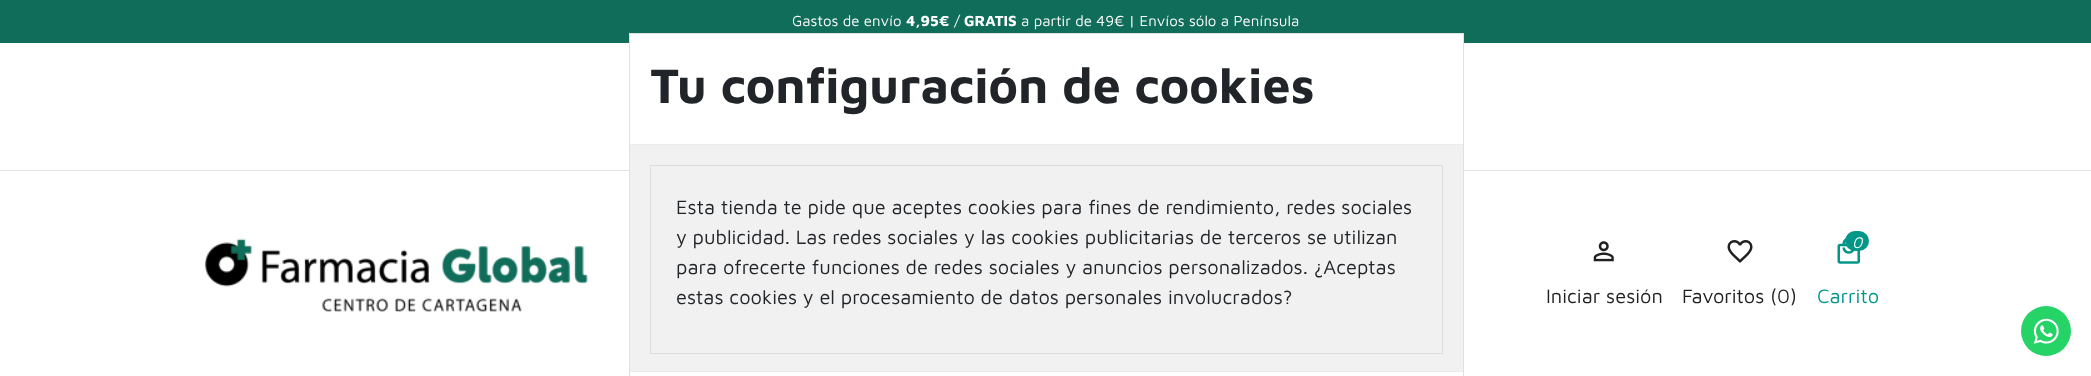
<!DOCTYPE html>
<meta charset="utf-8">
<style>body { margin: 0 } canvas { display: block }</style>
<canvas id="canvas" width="2091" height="376"></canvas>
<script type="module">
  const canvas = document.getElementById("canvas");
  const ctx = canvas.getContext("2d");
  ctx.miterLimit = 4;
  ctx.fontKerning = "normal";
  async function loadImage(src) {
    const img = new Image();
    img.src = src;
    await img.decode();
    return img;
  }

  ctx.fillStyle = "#ffffff";
  ctx.fillRect(0, 0, 2091, 376);
  ctx.fillStyle = "#e3e3e3";
  ctx.fillRect(0, 170, 2091, 1);
  ctx.fillStyle = "#106d5a";
  ctx.fillRect(0, 0, 2091, 43);
  ctx.font = "15px Maven Pro";
  ctx.fillStyle = "#ffffff";
  ctx.fillText("Gastos de envío", 792, 26);
  ctx.font = "bold 15px Maven Pro";
  ctx.fillText("4,95€", 906, 26);
  ctx.font = "15px Maven Pro";
  ctx.fillText("/", 954, 26);
  ctx.font = "bold 15px Maven Pro";
  ctx.fillText("GRATIS", 964, 26);
  ctx.font = "15px Maven Pro";
  ctx.fillText("a partir de 49€ | Envíos sólo a Península", 1021, 26);
  ctx.drawImage(await loadImage("img1.png"), 204, 238, 384, 74);
  ctx.drawImage(await loadImage("img2.png"), 1593, 241, 21, 21);
  ctx.font = "20px Maven Pro";
  ctx.fillStyle = "#202020";
  ctx.fillText("Iniciar sesión", 1546, 303);
  ctx.drawImage(await loadImage("img3.png"), 1727, 240, 26, 23);
  ctx.fillText("Favoritos (0)", 1682, 303);
  ctx.drawImage(await loadImage("img4.png"), 1837, 238, 23, 26);
  ctx.fillStyle = "#009688";
  ctx.beginPath();
  ctx.roundRect(1845, 231, 24, 20, 10);
  ctx.fill();
  ctx.font = "italic 16px Maven Pro";
  ctx.fillStyle = "#ffffff";
  ctx.fillText("0", 1852, 248);
  ctx.font = "20px Maven Pro";
  ctx.fillStyle = "#009688";
  ctx.fillText("Carrito", 1817, 303);
  ctx.fillStyle = "#25d366";
  ctx.beginPath();
  ctx.arc(2046, 331, 25, 0, Math.PI * 2);
  ctx.fill();
  ctx.drawImage(await loadImage("img5.png"), 2033, 318, 26, 26);
  ctx.fillStyle = "#ffffff";
  ctx.fillRect(630, 34, 833, 137);
  ctx.strokeStyle = "#e0e0e0";
  ctx.strokeRect(629.5, 33.5, 834, 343);
  ctx.fillStyle = "#e9ecef";
  ctx.fillRect(630, 144, 833, 1);
  ctx.font = "bold 50px Maven Pro";
  ctx.fillStyle = "#212529";
  ctx.fillText("Tu configuración de cookies", 650, 103);
  ctx.fillStyle = "#f1f1f1";
  ctx.fillRect(630, 145, 833, 226);
  ctx.strokeStyle = "#dddddd";
  ctx.strokeRect(650.5, 165.5, 792, 188);
  ctx.font = "20px Maven Pro";
  ctx.fillStyle = "#212529";
  ctx.fillText("Esta tienda te pide que aceptes cookies para fines de rendimiento, redes sociales", 676, 214);
  ctx.fillText("y publicidad. Las redes sociales y las cookies publicitarias de terceros se utilizan", 676, 244);
  ctx.fillText("para ofrecerte funciones de redes sociales y anuncios personalizados. ¿Aceptas", 676, 274);
  ctx.fillText("estas cookies y el procesamiento de datos personales involucrados?", 676, 304);
  ctx.fillStyle = "#e9ecef";
  ctx.fillRect(630, 371, 833, 1);
</script>
